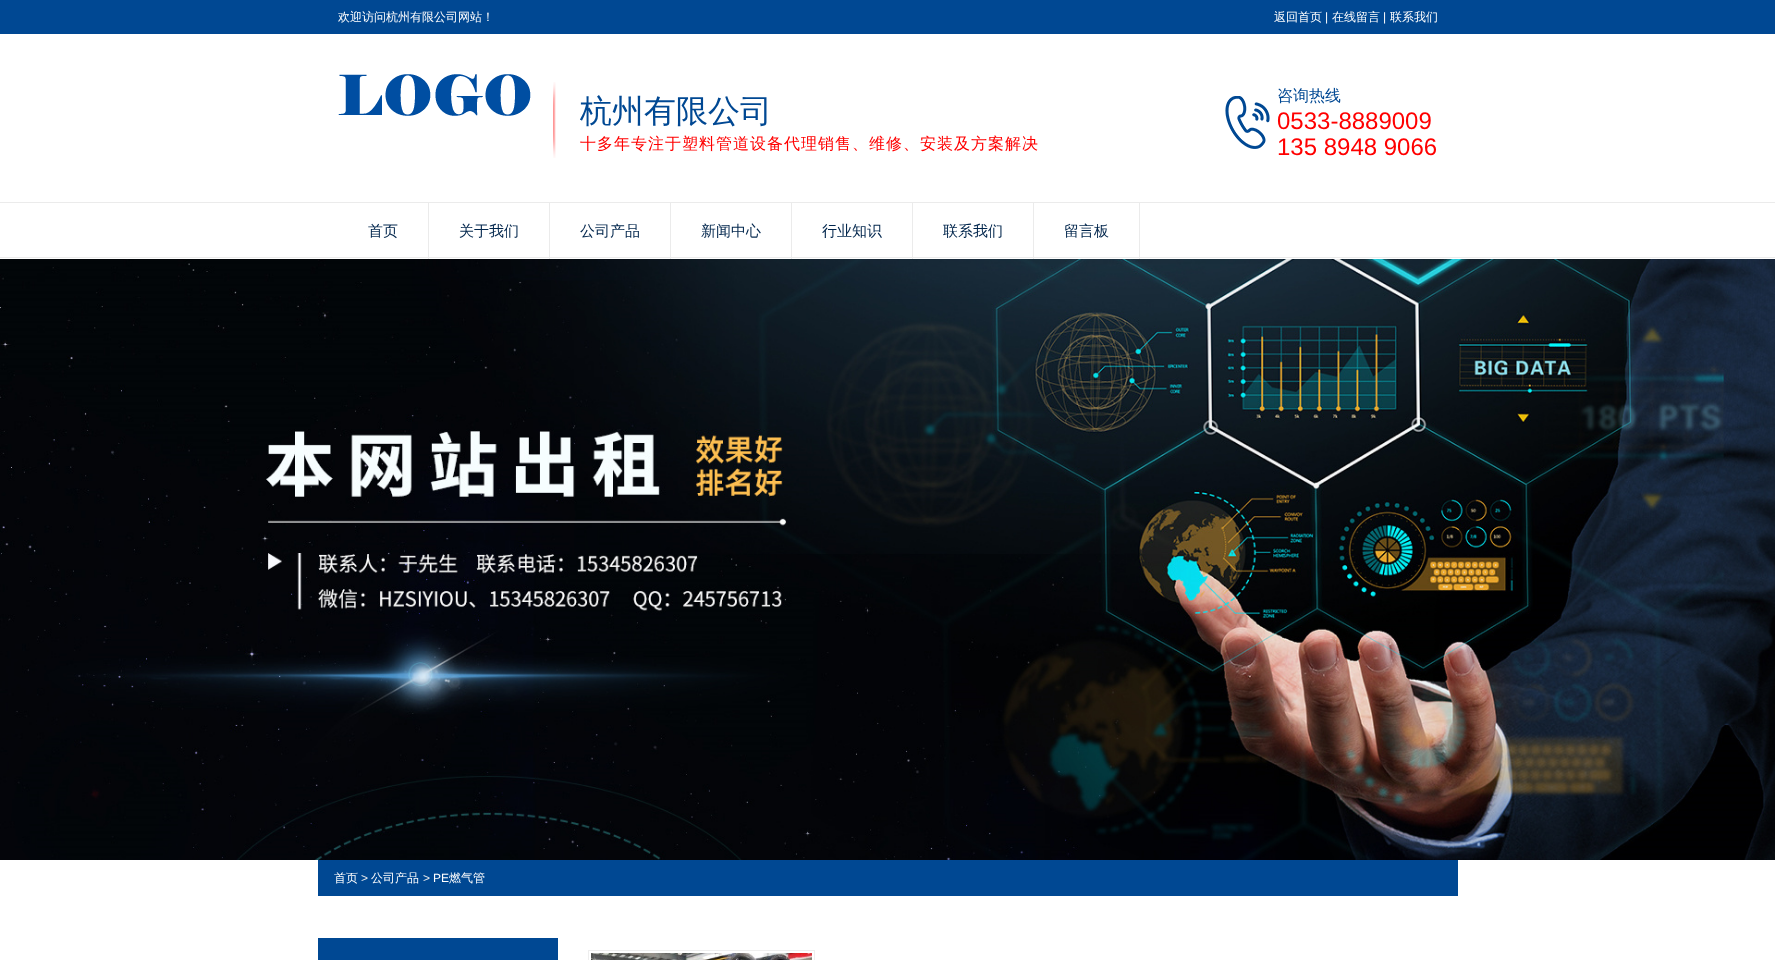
<!DOCTYPE html>
<meta charset="utf-8">
<style>body { margin: 0 } canvas { display: block }</style>
<canvas id="canvas" width="1775" height="960"></canvas>
<script type="module">
  const canvas = document.getElementById("canvas");
  const ctx = canvas.getContext("2d");
  ctx.miterLimit = 4;
  ctx.fontKerning = "normal";
  async function loadImage(src) {
    const img = new Image();
    img.src = src;
    await img.decode();
    return img;
  }

  ctx.fillStyle = "#ffffff";
  ctx.fillRect(0, 0, 1775, 960);
  ctx.fillStyle = "#004893";
  ctx.fillRect(0, 0, 1775, 34);
  ctx.font = "500 12px WenQuanYi Zen Hei";
  ctx.fillStyle = "#ffffff";
  ctx.fillText("欢迎访问杭州有限公司网站！", 338, 21);
  ctx.fillText("返回首页", 1274, 21);
  ctx.font = "12px Liberation Sans";
  ctx.fillText("|", 1325, 21);
  ctx.font = "500 12px WenQuanYi Zen Hei";
  ctx.fillText("在线留言", 1332, 21);
  ctx.font = "12px Liberation Sans";
  ctx.fillText("|", 1383, 21);
  ctx.font = "500 12px WenQuanYi Zen Hei";
  ctx.fillText("联系我们", 1390, 21);
  ctx.drawImage(await loadImage("img1.png"), 338, 74, 193, 42);
  ctx.drawImage(await loadImage("img2.png"), 553, 82, 3, 76);
  ctx.font = "500 32px WenQuanYi Zen Hei";
  ctx.fillStyle = "#004893";
  ctx.fillText("杭州有限公司", 580, 122);
  ctx.letterSpacing = "1px";
  ctx.font = "500 16px WenQuanYi Zen Hei";
  ctx.fillStyle = "#ff0000";
  ctx.fillText("十多年专注于塑料管道设备代理销售、维修、安装及方案解决", 580, 149);
  ctx.drawImage(await loadImage("img3.png"), 1225, 96, 45, 53);
  ctx.letterSpacing = "0px";
  ctx.fillStyle = "#004893";
  ctx.fillText("咨询热线", 1277, 101);
  ctx.font = "24px Liberation Sans";
  ctx.fillStyle = "#ff0000";
  ctx.fillText("0533-8889009", 1277, 129);
  ctx.fillText("135 8948 9066", 1277, 155);
  ctx.fillStyle = "#ebebeb";
  ctx.fillRect(0, 202, 1775, 1);
  ctx.fillRect(0, 257, 1775, 1);
  ctx.fillRect(428, 203, 1, 56);
  ctx.font = "500 15px WenQuanYi Zen Hei";
  ctx.fillStyle = "#00254c";
  ctx.fillText("首页", 368, 236);
  ctx.fillStyle = "#ebebeb";
  ctx.fillRect(549, 203, 1, 56);
  ctx.fillStyle = "#00254c";
  ctx.fillText("关于我们", 459, 236);
  ctx.fillStyle = "#ebebeb";
  ctx.fillRect(670, 203, 1, 56);
  ctx.fillStyle = "#00254c";
  ctx.fillText("公司产品", 580, 236);
  ctx.fillStyle = "#ebebeb";
  ctx.fillRect(791, 203, 1, 56);
  ctx.fillStyle = "#00254c";
  ctx.fillText("新闻中心", 701, 236);
  ctx.fillStyle = "#ebebeb";
  ctx.fillRect(912, 203, 1, 56);
  ctx.fillStyle = "#00254c";
  ctx.fillText("行业知识", 822, 236);
  ctx.fillStyle = "#ebebeb";
  ctx.fillRect(1033, 203, 1, 56);
  ctx.fillStyle = "#00254c";
  ctx.fillText("联系我们", 943, 236);
  ctx.fillStyle = "#ebebeb";
  ctx.fillRect(1139, 203, 1, 56);
  ctx.fillStyle = "#00254c";
  ctx.fillText("留言板", 1064, 236);
  ctx.drawImage(await loadImage("img4.png"), 0, 259, 1775, 601);
  ctx.fillStyle = "#004893";
  ctx.fillRect(318, 860, 1140, 36);
  ctx.font = "500 12px WenQuanYi Zen Hei";
  ctx.fillStyle = "#ffffff";
  ctx.fillText("首页", 334, 882);
  ctx.font = "12px Liberation Sans";
  ctx.fillStyle = "#eeeeee";
  ctx.fillText(">", 361, 882);
  ctx.font = "500 12px WenQuanYi Zen Hei";
  ctx.fillStyle = "#ffffff";
  ctx.fillText("公司产品", 371, 882);
  ctx.font = "12px Liberation Sans";
  ctx.fillStyle = "#eeeeee";
  ctx.fillText(">", 423, 882);
  ctx.fillStyle = "#ffffff";
  ctx.fillText("PE", 433, 882);
  ctx.font = "500 12px WenQuanYi Zen Hei";
  ctx.fillText("燃气管", 449, 882);
  ctx.fillStyle = "#004893";
  ctx.fillRect(318, 938, 240, 22);
  ctx.strokeStyle = "#eeeeee";
  ctx.strokeRect(588.5, 950.5, 226, 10);
  ctx.drawImage(await loadImage("img5.png"), 591, 953, 221, 7);
</script>
